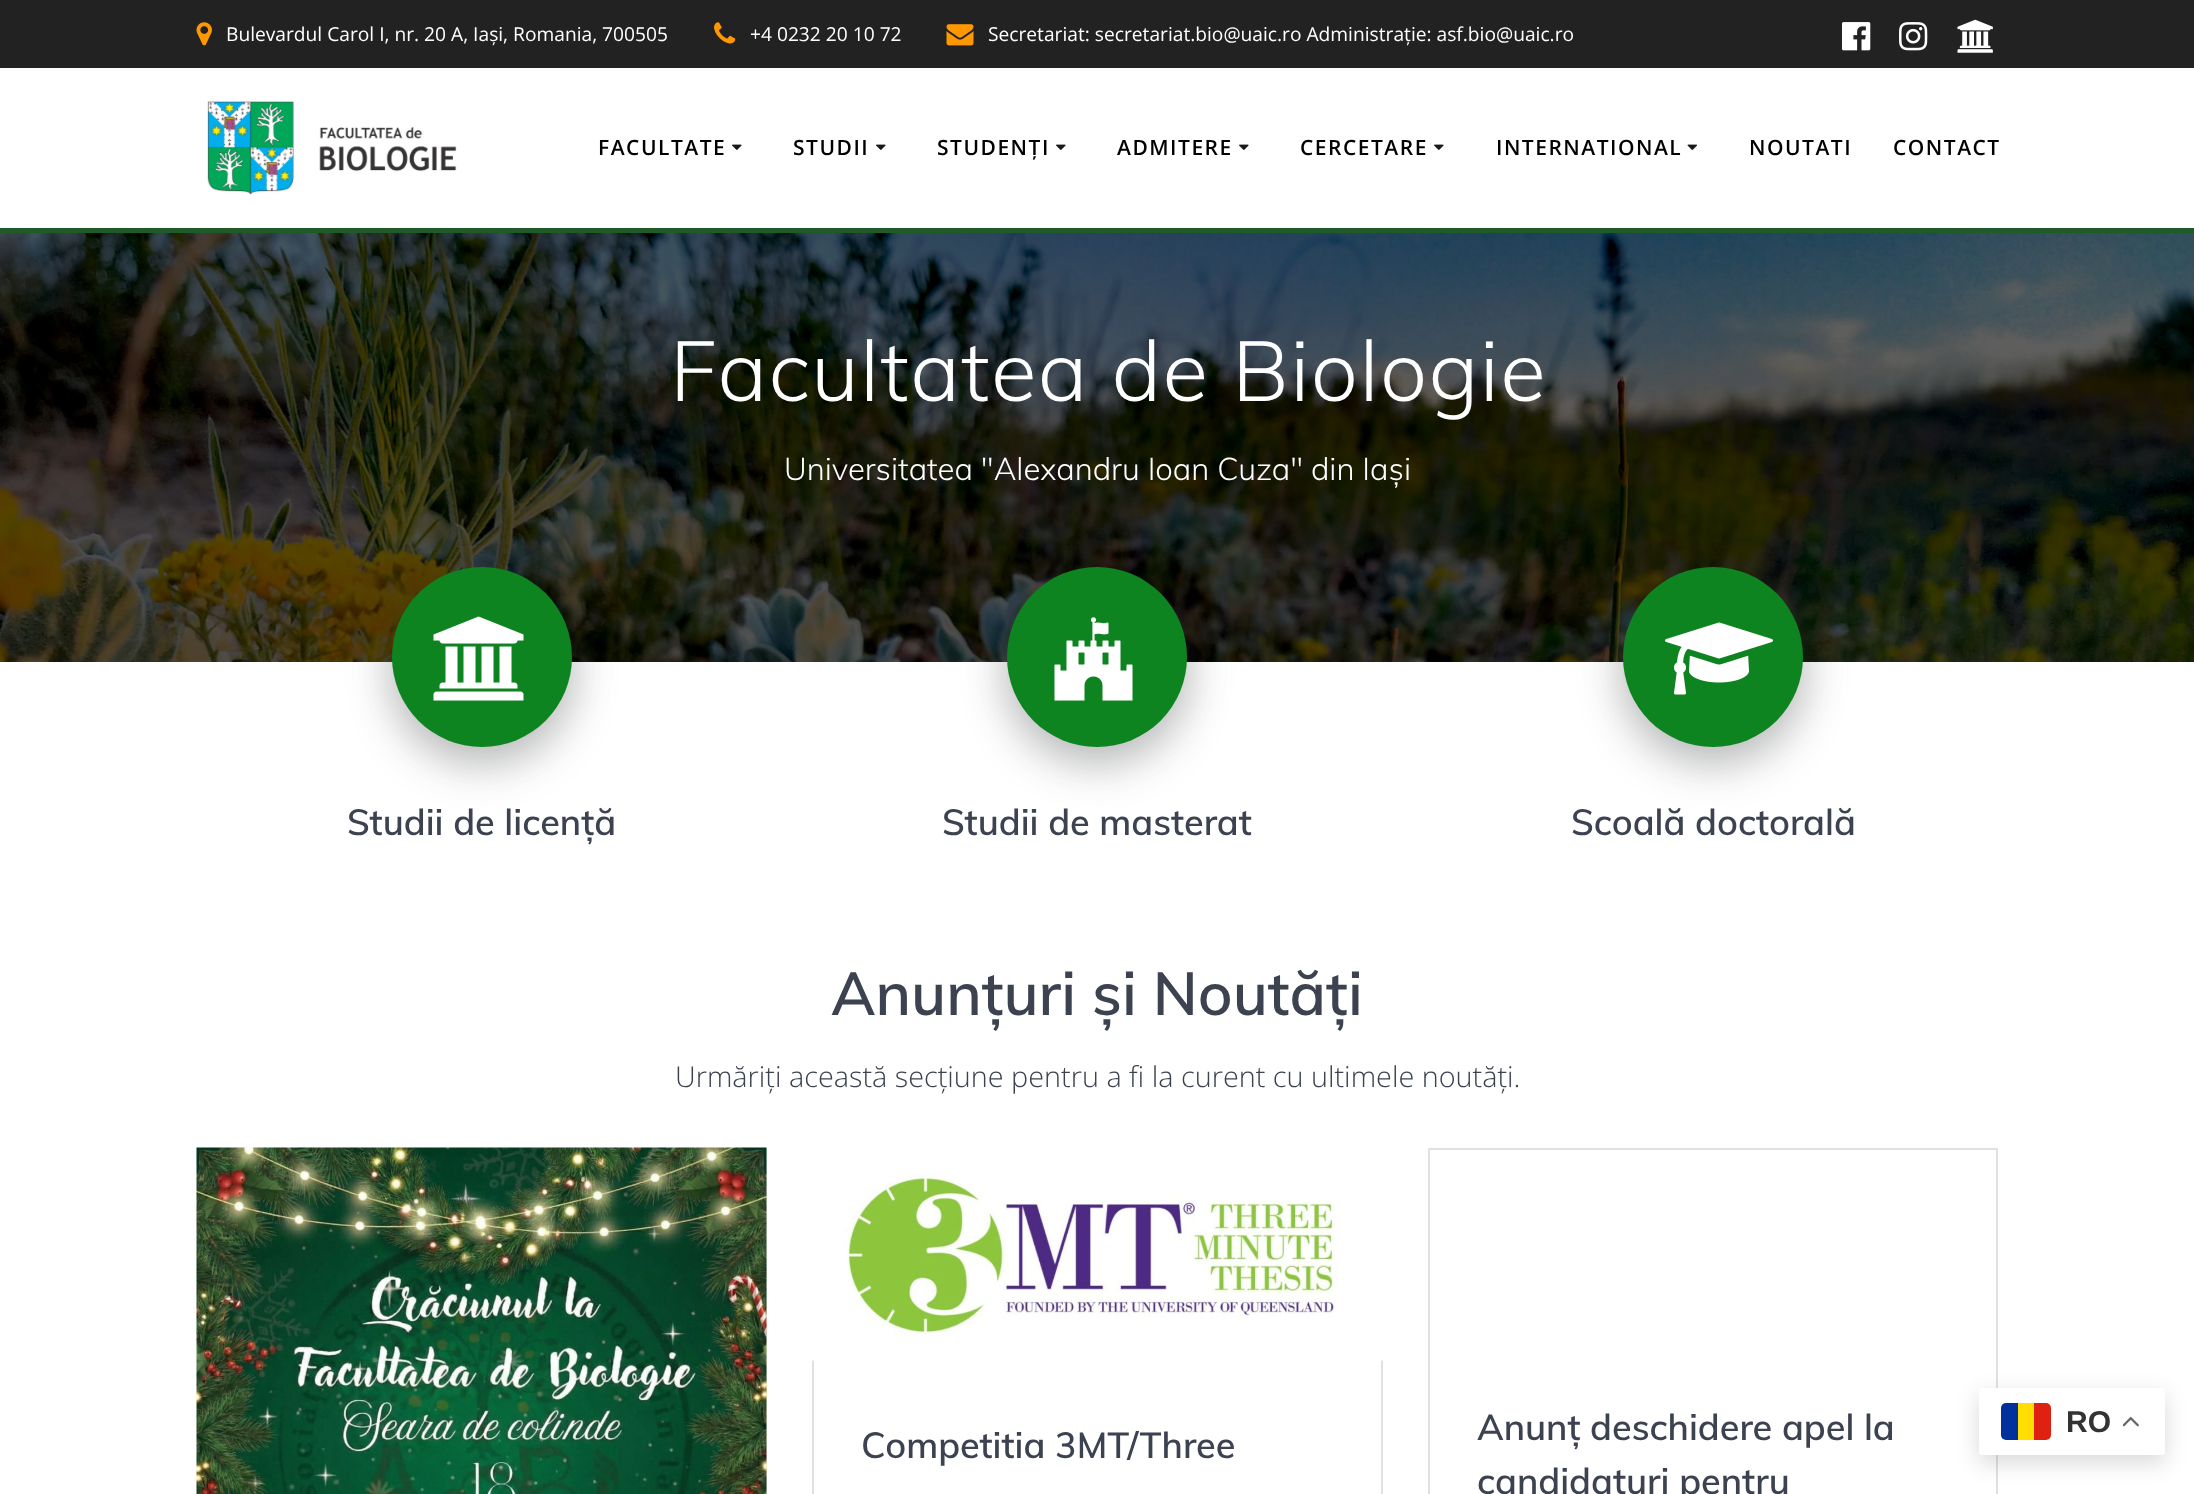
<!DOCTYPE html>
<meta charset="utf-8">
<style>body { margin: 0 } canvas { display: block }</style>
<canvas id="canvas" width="2194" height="1494"></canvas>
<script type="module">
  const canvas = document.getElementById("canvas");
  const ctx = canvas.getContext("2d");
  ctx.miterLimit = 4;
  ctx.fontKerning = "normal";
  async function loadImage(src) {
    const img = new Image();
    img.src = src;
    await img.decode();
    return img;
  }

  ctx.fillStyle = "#ffffff";
  ctx.fillRect(0, 0, 2194, 1494);
  ctx.fillStyle = "#222222";
  ctx.fillRect(0, 0, 2194, 68);
  ctx.drawImage(await loadImage("img1.png"), 196, 22, 16, 24);
  ctx.font = "19.2px Open Sans";
  ctx.fillStyle = "#ffffff";
  ctx.fillText("Bulevardul Carol I, nr. 20 A, Iași, Romania, 700505", 226, 41);
  ctx.drawImage(await loadImage("img2.png"), 714, 22, 22, 22);
  ctx.fillText("+4 0232 20 10 72", 750, 41);
  ctx.drawImage(await loadImage("img3.png"), 946, 24, 28, 22);
  ctx.fillText("Secretariat: secretariat.bio@uaic.ro Administrație: asf.bio@uaic.ro", 988, 41);
  ctx.drawImage(await loadImage("img4.png"), 1842, 22, 29, 29);
  ctx.drawImage(await loadImage("img5.png"), 1899, 22, 29, 29);
  ctx.drawImage(await loadImage("img6.png"), 1957, 19, 36, 34);
  ctx.fillStyle = "#1f5a28";
  ctx.fillRect(0, 228, 2194, 5);
  ctx.drawImage(await loadImage("img7.png"), 207, 101, 250, 94);
  ctx.letterSpacing = "1.5px";
  ctx.font = "600 21px Open Sans";
  ctx.fillStyle = "#000000";
  ctx.fillText("FACULTATE", 598, 155);
  ctx.drawImage(await loadImage("img8.png"), 732, 144, 10, 6);
  ctx.fillText("STUDII", 793, 155);
  ctx.drawImage(await loadImage("img8.png"), 876, 144, 10, 6);
  ctx.fillText("STUDENȚI", 937, 155);
  ctx.drawImage(await loadImage("img8.png"), 1056, 144, 10, 6);
  ctx.fillText("ADMITERE", 1117, 155);
  ctx.drawImage(await loadImage("img8.png"), 1239, 144, 10, 6);
  ctx.fillText("CERCETARE", 1300, 155);
  ctx.drawImage(await loadImage("img8.png"), 1434, 144, 10, 6);
  ctx.fillText("INTERNATIONAL", 1496, 155);
  ctx.drawImage(await loadImage("img9.png"), 1687, 144, 10, 6);
  ctx.fillText("NOUTATI", 1749, 155);
  ctx.fillText("CONTACT", 1893, 155);
  ctx.drawImage(await loadImage("img10.png"), 0, 233, 2194, 429);
  ctx.drawImage(await loadImage("img11.png"), 1217, 320, 27, 42);
  ctx.letterSpacing = "1.35px";
  ctx.font = "300 84px Muli";
  ctx.fillStyle = "#ffffff";
  ctx.fillText("Facultatea de Biologie", 670, 401);
  ctx.letterSpacing = "0px";
  ctx.font = "300 31.2px Muli";
  ctx.fillText("Universitatea \"Alexandru Ioan Cuza\" din Iași", 784, 480);
  ctx.fillStyle = "rgba(0, 0, 0, 0.08)";
  ctx.filter = "blur(22.5px)";
  ctx.beginPath();
  ctx.roundRect(392, 582, 180, 180, 90);
  ctx.fill();
  ctx.filter = "none";
  ctx.fillStyle = "rgba(49, 52, 57, 0.3)";
  ctx.filter = "blur(22.5px)";
  ctx.beginPath();
  ctx.roundRect(392, 582, 180, 180, 90);
  ctx.fill();
  ctx.filter = "none";
  ctx.fillStyle = "#0e8420";
  ctx.beginPath();
  ctx.arc(482, 657, 90, 0, Math.PI * 2);
  ctx.fill();
  ctx.drawImage(await loadImage("img12.png"), 433, 616, 91, 85);
  ctx.font = "600 36px Muli";
  ctx.fillStyle = "#3c424f";
  ctx.fillText("Studii de licență", 347, 835);
  ctx.fillStyle = "rgba(0, 0, 0, 0.08)";
  ctx.filter = "blur(22.5px)";
  ctx.beginPath();
  ctx.roundRect(1007, 582, 180, 180, 90);
  ctx.fill();
  ctx.filter = "none";
  ctx.fillStyle = "rgba(49, 52, 57, 0.3)";
  ctx.filter = "blur(22.5px)";
  ctx.beginPath();
  ctx.roundRect(1007, 582, 180, 180, 90);
  ctx.fill();
  ctx.filter = "none";
  ctx.fillStyle = "#0e8420";
  ctx.beginPath();
  ctx.arc(1097, 657, 90, 0, Math.PI * 2);
  ctx.fill();
  ctx.drawImage(await loadImage("img13.png"), 1054, 617, 79, 84);
  ctx.fillStyle = "#3c424f";
  ctx.fillText("Studii de masterat", 942, 835);
  ctx.fillStyle = "rgba(0, 0, 0, 0.08)";
  ctx.filter = "blur(22.5px)";
  ctx.beginPath();
  ctx.roundRect(1623, 582, 180, 180, 90);
  ctx.fill();
  ctx.filter = "none";
  ctx.fillStyle = "rgba(49, 52, 57, 0.3)";
  ctx.filter = "blur(22.5px)";
  ctx.beginPath();
  ctx.roundRect(1623, 582, 180, 180, 90);
  ctx.fill();
  ctx.filter = "none";
  ctx.fillStyle = "#0e8420";
  ctx.beginPath();
  ctx.arc(1713, 657, 90, 0, Math.PI * 2);
  ctx.fill();
  ctx.drawImage(await loadImage("img14.png"), 1665, 622, 108, 73);
  ctx.fillStyle = "#3c424f";
  ctx.fillText("Scoală doctorală", 1571, 835);
  ctx.font = "600 60px Muli";
  ctx.fillText("Anunțuri și Noutăți", 831, 1015);
  ctx.font = "300 28.8px Open Sans";
  ctx.fillText("Urmăriți această secțiune pentru a fi la curent cu ultimele noutăți.", 675, 1087);
  ctx.strokeStyle = "#e0e1e1";
  ctx.lineWidth = 2;
  ctx.strokeRect(198, 1149, 568, 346);
  ctx.drawImage(await loadImage("img15.png"), 196, 1147, 571, 347);
  ctx.strokeRect(813, 1149, 569, 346);
  ctx.drawImage(await loadImage("img16.png"), 812, 1148, 571, 213);
  ctx.font = "600 36px Muli";
  ctx.fillText("Competitia 3MT/Three", 861, 1458);
  ctx.strokeRect(1429, 1149, 568, 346);
  ctx.fillText("Anunț deschidere apel la", 1477, 1440);
  ctx.fillText("candidaturi pentru", 1477, 1494);
  ctx.fillStyle = "rgba(0, 0, 0, 0.15)";
  ctx.filter = "blur(11px)";
  ctx.beginPath();
  ctx.roundRect(1979, 1395, 186, 68, 3);
  ctx.fill();
  ctx.filter = "none";
  ctx.fillStyle = "#ffffff";
  ctx.beginPath();
  ctx.roundRect(1979, 1388, 186, 67, 3);
  ctx.fill();
  ctx.fillStyle = "#00319c";
  ctx.beginPath();
  ctx.roundRect(2001, 1403, 17, 37, [5, 0, 0, 5]);
  ctx.fill();
  ctx.fillStyle = "#ffde00";
  ctx.fillRect(2018, 1403, 16, 37);
  ctx.fillStyle = "#de2110";
  ctx.beginPath();
  ctx.roundRect(2034, 1403, 17, 37, [0, 5, 5, 0]);
  ctx.fill();
  ctx.font = "bold 30px Liberation Sans";
  ctx.fillStyle = "#333333";
  ctx.fillText("RO", 2066, 1432);
  ctx.drawImage(await loadImage("img17.png"), 2123, 1416, 16, 11);
</script>
